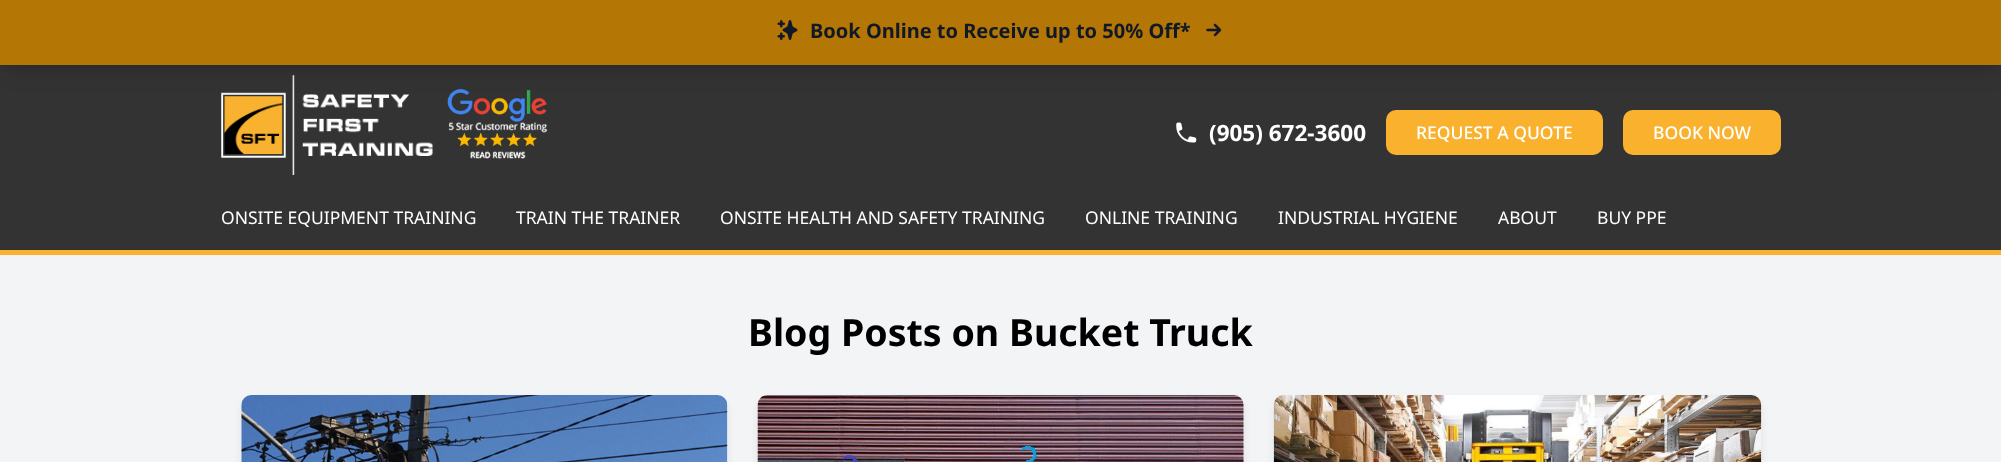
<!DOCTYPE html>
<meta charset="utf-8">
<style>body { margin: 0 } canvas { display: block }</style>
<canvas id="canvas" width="2001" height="462"></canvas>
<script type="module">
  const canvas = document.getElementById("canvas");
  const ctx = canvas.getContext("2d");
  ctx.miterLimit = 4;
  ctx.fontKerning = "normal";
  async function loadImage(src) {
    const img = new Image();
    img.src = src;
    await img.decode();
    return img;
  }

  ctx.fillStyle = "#f3f4f6";
  ctx.fillRect(0, 0, 2001, 462);
  ctx.fillStyle = "#333333";
  ctx.fillRect(0, 65, 2001, 185);
  ctx.drawImage(await loadImage("img3.png"), 221, 75, 212, 100);
  ctx.fillStyle = "rgba(0, 0, 0, 0.1)";
  ctx.filter = "blur(4px)";
  ctx.beginPath();
  ctx.rect(5, 10, 1991, 55);
  ctx.fill();
  ctx.filter = "none";
  ctx.drawImage(await loadImage("img4.png"), 447, 88, 100, 71);
  ctx.filter = "blur(9.5px)";
  ctx.beginPath();
  ctx.rect(4, 16, 1994, 58);
  ctx.fill();
  ctx.filter = "none";
  ctx.fillStyle = "#b47604";
  ctx.fillRect(0, 0, 2001, 65);
  ctx.drawImage(await loadImage("img1.png"), 777, 20, 21, 20);
  ctx.font = "bold 20px Noto Sans";
  ctx.fillStyle = "#111827";
  ctx.fillText("Book Online to Receive up to 50% Off*", 810, 38);
  ctx.drawImage(await loadImage("img2.png"), 1206, 23, 16, 14);
  ctx.fillStyle = "#fab22e";
  ctx.fillRect(0, 250, 2001, 5);
  ctx.drawImage(await loadImage("img5.png"), 1176, 122, 21, 21);
  ctx.font = "bold 22.5px Noto Sans";
  ctx.fillStyle = "#ffffff";
  ctx.fillText("(905) 672-3600", 1209, 141);
  ctx.fillStyle = "#fab22e";
  ctx.beginPath();
  ctx.roundRect(1386, 110, 217, 45, 10);
  ctx.fill();
  ctx.font = "500 17.5px Noto Sans";
  ctx.fillStyle = "#ffffff";
  ctx.fillText("REQUEST A QUOTE", 1416, 139);
  ctx.fillStyle = "#fab22e";
  ctx.beginPath();
  ctx.roundRect(1623, 110, 158, 45, 10);
  ctx.fill();
  ctx.fillStyle = "#ffffff";
  ctx.fillText("BOOK NOW", 1653, 139);
  ctx.font = "17.5px Noto Sans";
  ctx.fillText("ONSITE EQUIPMENT TRAINING", 221, 224);
  ctx.fillText("TRAIN THE TRAINER", 516, 224);
  ctx.fillText("ONSITE HEALTH AND SAFETY TRAINING", 720, 224);
  ctx.fillText("ONLINE TRAINING", 1085, 224);
  ctx.fillText("INDUSTRIAL HYGIENE", 1278, 224);
  ctx.fillText("ABOUT", 1498, 224);
  ctx.fillText("BUY PPE", 1597, 224);
  ctx.font = "bold 37.5px Noto Sans";
  ctx.fillStyle = "#000000";
  ctx.fillText("Blog Posts on Bucket Truck", 748, 346);
  ctx.fillStyle = "rgba(0, 0, 0, 0.1)";
  ctx.filter = "blur(4px)";
  ctx.beginPath();
  ctx.roundRect(243, 401, 483, 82, 9);
  ctx.fill();
  ctx.filter = "none";
  ctx.fillStyle = "#ffffff";
  ctx.beginPath();
  ctx.roundRect(241, 395, 487, 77, 10);
  ctx.fill();
  ctx.drawImage(await loadImage("img6.png"), 241, 395, 487, 67);
  ctx.fillStyle = "rgba(0, 0, 0, 0.1)";
  ctx.filter = "blur(4px)";
  ctx.beginPath();
  ctx.roundRect(759, 401, 484, 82, 9);
  ctx.fill();
  ctx.filter = "none";
  ctx.fillStyle = "#ffffff";
  ctx.beginPath();
  ctx.roundRect(758, 395, 486, 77, 10);
  ctx.fill();
  ctx.drawImage(await loadImage("img7.png"), 757, 395, 487, 67);
  ctx.fillStyle = "rgba(0, 0, 0, 0.1)";
  ctx.filter = "blur(4px)";
  ctx.beginPath();
  ctx.roundRect(1275, 401, 485, 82, 9);
  ctx.fill();
  ctx.filter = "none";
  ctx.drawImage(await loadImage("img8.png"), 1273, 395, 489, 67);
</script>
